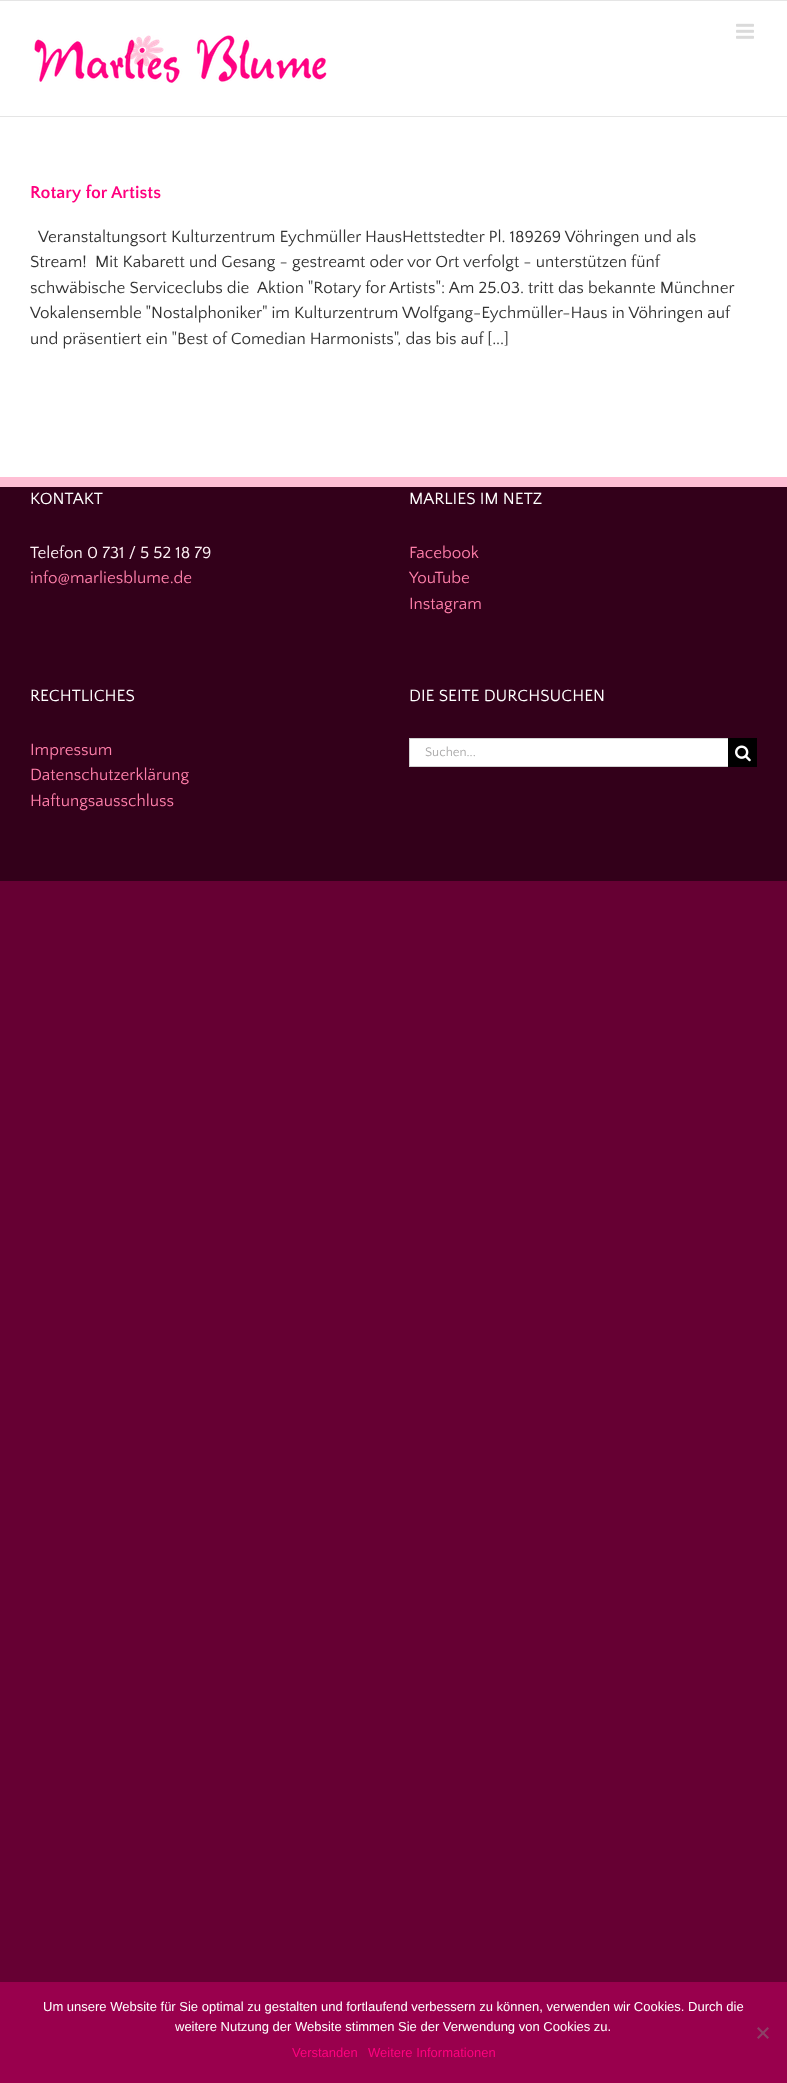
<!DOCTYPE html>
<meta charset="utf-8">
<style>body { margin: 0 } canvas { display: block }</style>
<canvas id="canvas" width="787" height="2083"></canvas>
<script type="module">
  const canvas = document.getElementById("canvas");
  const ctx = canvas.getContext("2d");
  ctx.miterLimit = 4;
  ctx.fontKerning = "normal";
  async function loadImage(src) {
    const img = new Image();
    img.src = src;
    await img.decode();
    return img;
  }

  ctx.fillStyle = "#660033";
  ctx.fillRect(0, 0, 787, 2083);
  ctx.fillStyle = "#e5e5e5";
  ctx.fillRect(0, 0, 787, 1);
  ctx.fillStyle = "#ffffff";
  ctx.fillRect(0, 1, 787, 115);
  ctx.fillStyle = "#e5e5e5";
  ctx.fillRect(0, 116, 787, 1);
  ctx.drawImage(await loadImage("img1.png"), 736, 23, 18, 16);
  ctx.drawImage(await loadImage("img2.png"), 34, 35, 293, 48);
  ctx.fillStyle = "#ffffff";
  ctx.fillRect(0, 117, 787, 360);
  ctx.font = "bold 18px Quattrocento Sans";
  ctx.fillStyle = "#ff007f";
  ctx.fillText("Rotary for Artists", 30, 198);
  ctx.font = "17px Quattrocento Sans";
  ctx.fillStyle = "#333333";
  ctx.fillText("Veranstaltungsort Kulturzentrum Eychmüller HausHettstedter Pl. 189269 Vöhringen und als", 38, 242);
  ctx.fillText("Stream!  Mit Kabarett und Gesang - gestreamt oder vor Ort verfolgt - unterstützen fünf", 30, 267);
  ctx.fillText("schwäbische Serviceclubs die  Aktion \"Rotary for Artists\": Am 25.03. tritt das bekannte Münchner", 30, 293);
  ctx.fillText("Vokalensemble \"Nostalphoniker\" im Kulturzentrum Wolfgang-Eychmüller-Haus in Vöhringen auf", 30, 318);
  ctx.fillText("und präsentiert ein \"Best of Comedian Harmonists\", das bis auf [...]", 30, 344);
  ctx.fillStyle = "#33001a";
  ctx.fillRect(0, 487, 787, 394);
  ctx.fillStyle = "#ffbed4";
  ctx.fillRect(0, 477, 787, 10);
  ctx.fillStyle = "#ffffff";
  ctx.fillText("KONTAKT", 30, 504);
  ctx.fillStyle = "#fff2f6";
  ctx.fillText("Telefon 0 731 / 5 52 18 79", 30, 558);
  ctx.fillStyle = "#ff7faa";
  ctx.fillText("info@marliesblume.de", 30, 583);
  ctx.fillStyle = "#ffffff";
  ctx.fillText("MARLIES IM NETZ", 409, 504);
  ctx.fillStyle = "#ff7faa";
  ctx.fillText("Facebook", 409, 558);
  ctx.fillText("YouTube", 409, 583);
  ctx.fillText("Instagram", 409, 609);
  ctx.fillStyle = "#ffffff";
  ctx.fillText("RECHTLICHES", 30, 701);
  ctx.fillStyle = "#ff7faa";
  ctx.fillText("Impressum", 30, 755);
  ctx.fillText("Datenschutzerklärung", 30, 780);
  ctx.fillText("Haftungsausschluss", 30, 806);
  ctx.fillStyle = "#ffffff";
  ctx.fillText("DIE SEITE DURCHSUCHEN", 409, 701);
  ctx.fillRect(410, 739, 318, 27);
  ctx.fillStyle = "#d2d2d2";
  ctx.fillRect(409, 738, 319, 1);
  ctx.fillRect(409, 766, 319, 1);
  ctx.fillRect(409, 738, 1, 29);
  ctx.font = "13px Quattrocento Sans";
  ctx.fillStyle = "#aaa9a9";
  ctx.fillText("Suchen...", 425, 756);
  ctx.fillStyle = "#000000";
  ctx.fillRect(728, 738, 29, 29);
  ctx.drawImage(await loadImage("img3.png"), 735, 745, 16, 17);
  ctx.fillStyle = "#99004d";
  ctx.fillRect(0, 1982, 787, 101);
  ctx.font = "13px Liberation Sans";
  ctx.fillStyle = "#ffffff";
  ctx.fillText("Um unsere Website für Sie optimal zu gestalten und fortlaufend verbessern zu können, verwenden wir Cookies. Durch die", 43, 2011);
  ctx.fillText("weitere Nutzung der Website stimmen Sie der Verwendung von Cookies zu.", 175, 2031);
  ctx.fillStyle = "#8d4067";
  ctx.beginPath();
  ctx.moveTo(767.5, 2027);
  ctx.lineTo(769, 2028.5);
  ctx.lineTo(758.5, 2039);
  ctx.lineTo(757, 2037.5);
  ctx.closePath();
  ctx.fill();
  ctx.beginPath();
  ctx.moveTo(757, 2028.5);
  ctx.lineTo(758.5, 2027);
  ctx.lineTo(769, 2037.5);
  ctx.lineTo(767.5, 2039);
  ctx.closePath();
  ctx.fill();
  ctx.fillStyle = "#ff007f";
  ctx.fillText("Verstanden", 292, 2057);
  ctx.fillText("Weitere Informationen", 368, 2057);
</script>
